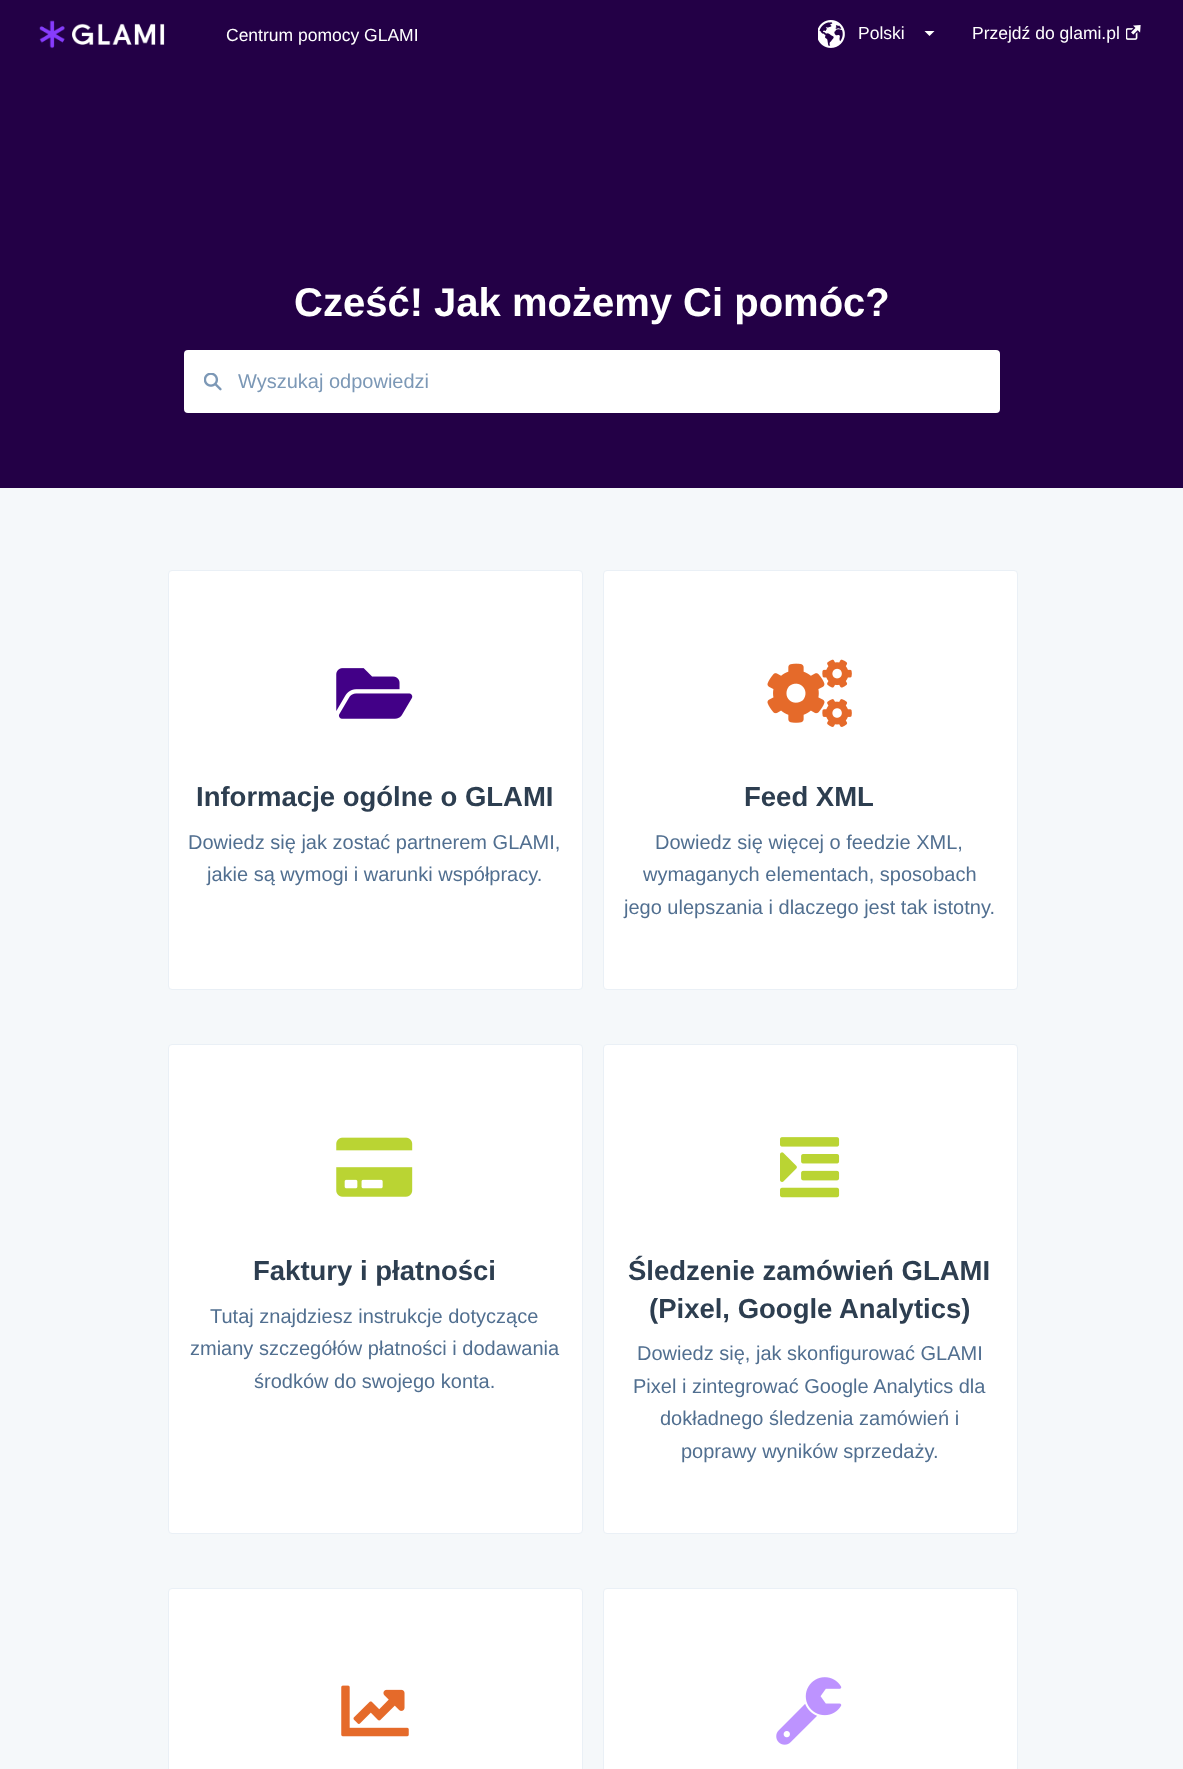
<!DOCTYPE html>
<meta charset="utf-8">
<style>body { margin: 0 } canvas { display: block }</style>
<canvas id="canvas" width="1183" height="1769"></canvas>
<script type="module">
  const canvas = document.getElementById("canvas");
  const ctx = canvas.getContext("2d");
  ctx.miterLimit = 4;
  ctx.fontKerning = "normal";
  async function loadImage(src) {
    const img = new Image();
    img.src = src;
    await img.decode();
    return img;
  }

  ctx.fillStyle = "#f5f8fa";
  ctx.fillRect(0, 0, 1183, 1769);
  ctx.fillStyle = "#230046";
  ctx.fillRect(0, 0, 1183, 488);
  ctx.drawImage(await loadImage("img1.png"), 39, 20, 126, 29);
  ctx.font = "17.5px Liberation Sans";
  ctx.fillStyle = "#ffffff";
  ctx.fillText("Centrum pomocy GLAMI", 226, 41);
  ctx.drawImage(await loadImage("img2.png"), 818, 20, 27, 28);
  ctx.fillText("Polski", 858, 39);
  ctx.beginPath();
  ctx.moveTo(924.5, 31);
  ctx.lineTo(934.5, 31);
  ctx.lineTo(929.5, 36);
  ctx.closePath();
  ctx.fill();
  ctx.fillText("Przejdź do glami.pl", 972, 39);
  ctx.drawImage(await loadImage("img3.png"), 1126, 25, 15, 15);
  ctx.font = "bold 40px Liberation Sans";
  ctx.fillText("Cześć! Jak możemy Ci pomóc?", 294, 316);
  ctx.beginPath();
  ctx.roundRect(184, 350, 816, 63, 4);
  ctx.fill();
  ctx.drawImage(await loadImage("img4.png"), 204, 373, 18, 18);
  ctx.font = "20px Liberation Sans";
  ctx.fillStyle = "#7c98b6";
  ctx.fillText("Wyszukaj odpowiedzi", 238, 388);
  ctx.fillStyle = "#ffffff";
  ctx.beginPath();
  ctx.roundRect(168.5, 570.5, 414, 419, 3.5);
  ctx.fill();
  ctx.strokeStyle = "#eaf0f6";
  ctx.stroke();
  ctx.drawImage(await loadImage("img5.png"), 336, 668, 77, 51);
  ctx.font = "bold 27.5px Liberation Sans";
  ctx.fillStyle = "#2d3e50";
  ctx.fillText("Informacje ogólne o GLAMI", 196, 806);
  ctx.font = "20px Liberation Sans";
  ctx.fillStyle = "#516f90";
  ctx.fillText("Dowiedz się jak zostać partnerem GLAMI,", 188, 849);
  ctx.fillText("jakie są wymogi i warunki współpracy.", 207, 881);
  ctx.fillStyle = "#ffffff";
  ctx.beginPath();
  ctx.roundRect(603.5, 570.5, 414, 419, 3.5);
  ctx.fill();
  ctx.stroke();
  ctx.drawImage(await loadImage("img6.png"), 767, 659, 85, 68);
  ctx.font = "bold 27.5px Liberation Sans";
  ctx.fillStyle = "#2d3e50";
  ctx.fillText("Feed XML", 744, 806);
  ctx.font = "20px Liberation Sans";
  ctx.fillStyle = "#516f90";
  ctx.fillText("Dowiedz się więcej o feedzie XML,", 655, 849);
  ctx.fillText("wymaganych elementach, sposobach", 643, 881);
  ctx.fillText("jego ulepszania i dlaczego jest tak istotny.", 624, 914);
  ctx.fillStyle = "#ffffff";
  ctx.beginPath();
  ctx.roundRect(168.5, 1044.5, 414, 489, 3.5);
  ctx.fill();
  ctx.stroke();
  ctx.drawImage(await loadImage("img7.png"), 336, 1137, 77, 60);
  ctx.font = "bold 27.5px Liberation Sans";
  ctx.fillStyle = "#2d3e50";
  ctx.fillText("Faktury i płatności", 253, 1280);
  ctx.font = "20px Liberation Sans";
  ctx.fillStyle = "#516f90";
  ctx.fillText("Tutaj znajdziesz instrukcje dotyczące", 210, 1323);
  ctx.fillText("zmiany szczegółów płatności i dodawania", 190, 1355);
  ctx.fillText("środków do swojego konta.", 254, 1388);
  ctx.fillStyle = "#ffffff";
  ctx.beginPath();
  ctx.roundRect(603.5, 1044.5, 414, 489, 3.5);
  ctx.fill();
  ctx.stroke();
  ctx.drawImage(await loadImage("img8.png"), 780, 1137, 60, 61);
  ctx.font = "bold 27.5px Liberation Sans";
  ctx.fillStyle = "#2d3e50";
  ctx.fillText("Śledzenie zamówień GLAMI", 628, 1280);
  ctx.fillText("(Pixel, Google Analytics)", 649, 1318);
  ctx.font = "20px Liberation Sans";
  ctx.fillStyle = "#516f90";
  ctx.fillText("Dowiedz się, jak skonfigurować GLAMI", 637, 1360);
  ctx.fillText("Pixel i zintegrować Google Analytics dla", 633, 1393);
  ctx.fillText("dokładnego śledzenia zamówień i", 660, 1425);
  ctx.fillText("poprawy wyników sprzedaży.", 681, 1458);
  ctx.fillStyle = "#ffffff";
  ctx.beginPath();
  ctx.roundRect(168.5, 1588.5, 414, 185, 3.5);
  ctx.fill();
  ctx.stroke();
  ctx.drawImage(await loadImage("img9.png"), 341, 1685, 68, 52);
  ctx.beginPath();
  ctx.roundRect(603.5, 1588.5, 414, 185, 3.5);
  ctx.fill();
  ctx.stroke();
  ctx.drawImage(await loadImage("img10.png"), 776, 1677, 66, 68);
</script>
